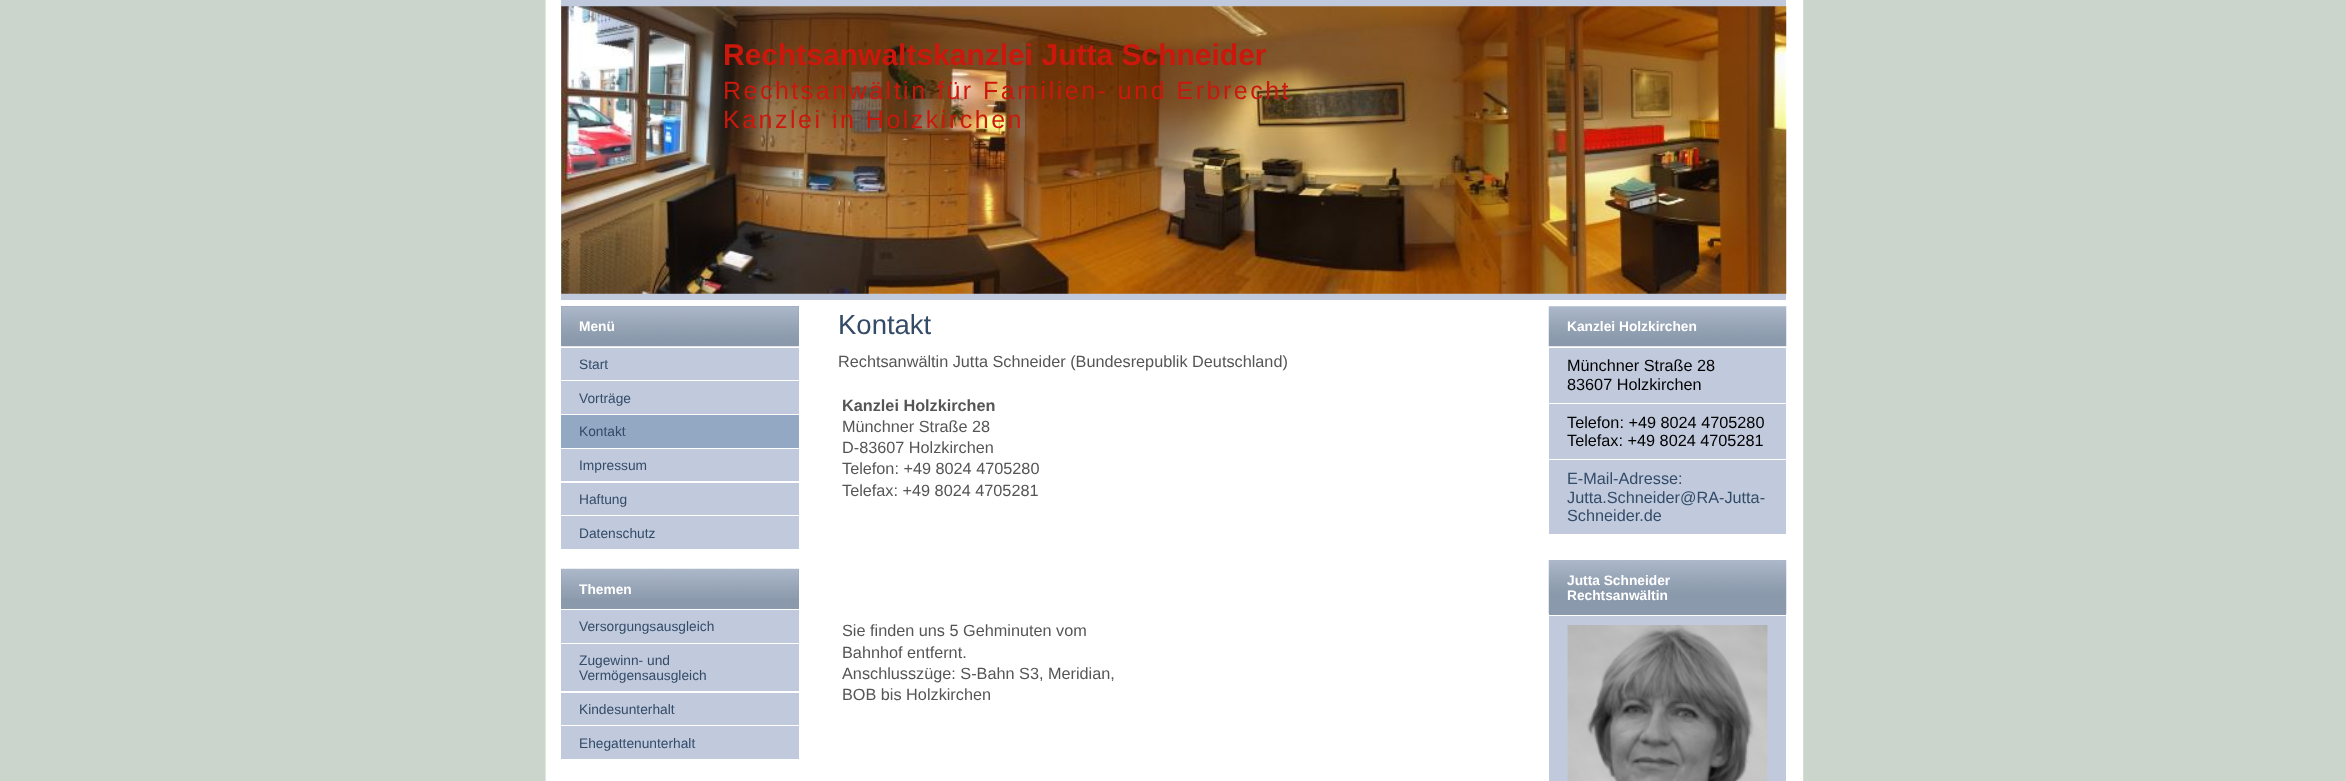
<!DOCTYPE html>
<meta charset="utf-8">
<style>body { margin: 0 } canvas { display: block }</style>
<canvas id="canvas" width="2346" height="781"></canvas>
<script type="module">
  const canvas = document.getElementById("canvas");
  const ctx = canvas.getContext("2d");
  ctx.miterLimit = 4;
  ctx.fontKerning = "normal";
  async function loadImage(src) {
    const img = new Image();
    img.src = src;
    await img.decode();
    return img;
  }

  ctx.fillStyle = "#ffffff";
  ctx.fillRect(0, 0, 2346, 781);
  ctx.drawImage(await loadImage("img1.png"), 0, 0, 2346, 781);
  ctx.fillStyle = "#c0cadc";
  ctx.fillRect(561, 0, 1225, 300);
  ctx.drawImage(await loadImage("img2.png"), 561, 6, 1226, 288);
  ctx.font = "bold 30px Liberation Sans";
  ctx.fillStyle = "#cc180c";
  ctx.fillText("Rechtsanwaltskanzlei Jutta Schneider", 723, 65);
  ctx.letterSpacing = "2.5px";
  ctx.font = "25px Liberation Sans";
  ctx.fillText("Rechtsanwältin für Familien- und Erbrecht", 723, 99);
  ctx.fillText("Kanzlei in Holzkirchen", 723, 128);
  ctx.fillStyle = "#8a99ab";
  ctx.fillRect(561, 306, 238, 40);
  ctx.drawImage(await loadImage("img3.png"), 561, 306, 238, 41);
  ctx.letterSpacing = "0px";
  ctx.font = "bold 13.75px Liberation Sans";
  ctx.fillStyle = "#ffffff";
  ctx.fillText("Menü", 579, 331);
  ctx.fillStyle = "#c0cadc";
  ctx.fillRect(561, 348, 238, 32);
  ctx.font = "13.75px Liberation Sans";
  ctx.fillStyle = "#344b68";
  ctx.fillText("Start", 579, 369);
  ctx.fillStyle = "#c0cadc";
  ctx.fillRect(561, 381, 238, 33);
  ctx.fillStyle = "#344b68";
  ctx.fillText("Vorträge", 579, 403);
  ctx.fillStyle = "#92a8c3";
  ctx.fillRect(561, 415, 238, 33);
  ctx.fillStyle = "#344b68";
  ctx.fillText("Kontakt", 579, 436);
  ctx.fillStyle = "#c0cadc";
  ctx.fillRect(561, 449, 238, 32);
  ctx.fillStyle = "#344b68";
  ctx.fillText("Impressum", 579, 470);
  ctx.fillStyle = "#c0cadc";
  ctx.fillRect(561, 483, 238, 32);
  ctx.fillStyle = "#344b68";
  ctx.fillText("Haftung", 579, 504);
  ctx.fillStyle = "#c0cadc";
  ctx.fillRect(561, 516, 238, 33);
  ctx.fillStyle = "#344b68";
  ctx.fillText("Datenschutz", 579, 538);
  ctx.fillStyle = "#8a99ab";
  ctx.fillRect(561, 569, 238, 40);
  ctx.drawImage(await loadImage("img4.png"), 561, 568, 238, 30);
  ctx.font = "bold 13.75px Liberation Sans";
  ctx.fillStyle = "#ffffff";
  ctx.fillText("Themen", 579, 594);
  ctx.fillStyle = "#c0cadc";
  ctx.fillRect(561, 610, 238, 33);
  ctx.font = "13.75px Liberation Sans";
  ctx.fillStyle = "#344b68";
  ctx.fillText("Versorgungsausgleich", 579, 631);
  ctx.fillStyle = "#c0cadc";
  ctx.fillRect(561, 644, 238, 47);
  ctx.fillStyle = "#344b68";
  ctx.fillText("Zugewinn- und", 579, 665);
  ctx.fillText("Vermögensausgleich", 579, 680);
  ctx.fillStyle = "#c0cadc";
  ctx.fillRect(561, 693, 238, 32);
  ctx.fillStyle = "#344b68";
  ctx.fillText("Kindesunterhalt", 579, 714);
  ctx.fillStyle = "#c0cadc";
  ctx.fillRect(561, 726, 238, 33);
  ctx.fillStyle = "#344b68";
  ctx.fillText("Ehegattenunterhalt", 579, 748);
  ctx.font = "27.5px Liberation Sans";
  ctx.fillText("Kontakt", 838, 334);
  ctx.font = "16.25px Liberation Sans";
  ctx.fillStyle = "#555555";
  ctx.fillText("Rechtsanwältin Jutta Schneider (Bundesrepublik Deutschland)", 838, 367);
  ctx.font = "bold 16.25px Liberation Sans";
  ctx.fillText("Kanzlei Holzkirchen", 842, 411);
  ctx.font = "16.25px Liberation Sans";
  ctx.fillText("Münchner Straße 28", 842, 432);
  ctx.fillText("D-83607 Holzkirchen", 842, 453);
  ctx.fillText("Telefon: +49 8024 4705280", 842, 474);
  ctx.fillText("Telefax: +49 8024 4705281", 842, 496);
  ctx.fillText("Sie finden uns 5 Gehminuten vom", 842, 636);
  ctx.fillText("Bahnhof entfernt.", 842, 658);
  ctx.fillText("Anschlusszüge: S-Bahn S3, Meridian,", 842, 679);
  ctx.fillText("BOB bis Holzkirchen", 842, 700);
  ctx.drawImage(await loadImage("img5.png"), 1548, 306, 239, 41);
  ctx.font = "bold 13.75px Liberation Sans";
  ctx.fillStyle = "#ffffff";
  ctx.fillText("Kanzlei Holzkirchen", 1567, 331);
  ctx.fillStyle = "#c0cadc";
  ctx.fillRect(1549, 348, 237, 55);
  ctx.font = "16.25px Liberation Sans";
  ctx.fillStyle = "#000000";
  ctx.fillText("Münchner Straße 28", 1567, 371);
  ctx.fillText("83607 Holzkirchen", 1567, 390);
  ctx.fillStyle = "#c0cadc";
  ctx.fillRect(1549, 404, 237, 55);
  ctx.fillStyle = "#000000";
  ctx.fillText("Telefon: +49 8024 4705280", 1567, 428);
  ctx.fillText("Telefax: +49 8024 4705281", 1567, 446);
  ctx.fillStyle = "#c0cadc";
  ctx.fillRect(1549, 460, 237, 74);
  ctx.fillStyle = "#344b68";
  ctx.fillText("E-Mail-Adresse:", 1567, 484);
  ctx.fillText("Jutta.Schneider@RA-Jutta-", 1567, 503);
  ctx.fillText("Schneider.de", 1567, 521);
  ctx.fillStyle = "#8a99ab";
  ctx.fillRect(1549, 613, 237, 2);
  ctx.drawImage(await loadImage("img6.png"), 1548, 560, 239, 54);
  ctx.font = "bold 13.75px Liberation Sans";
  ctx.fillStyle = "#ffffff";
  ctx.fillText("Jutta Schneider", 1567, 585);
  ctx.fillText("Rechtsanwältin", 1567, 600);
  ctx.fillStyle = "#c0cadc";
  ctx.fillRect(1549, 616, 237, 165);
  ctx.drawImage(await loadImage("img7.png"), 1567, 625, 201, 156);
</script>
